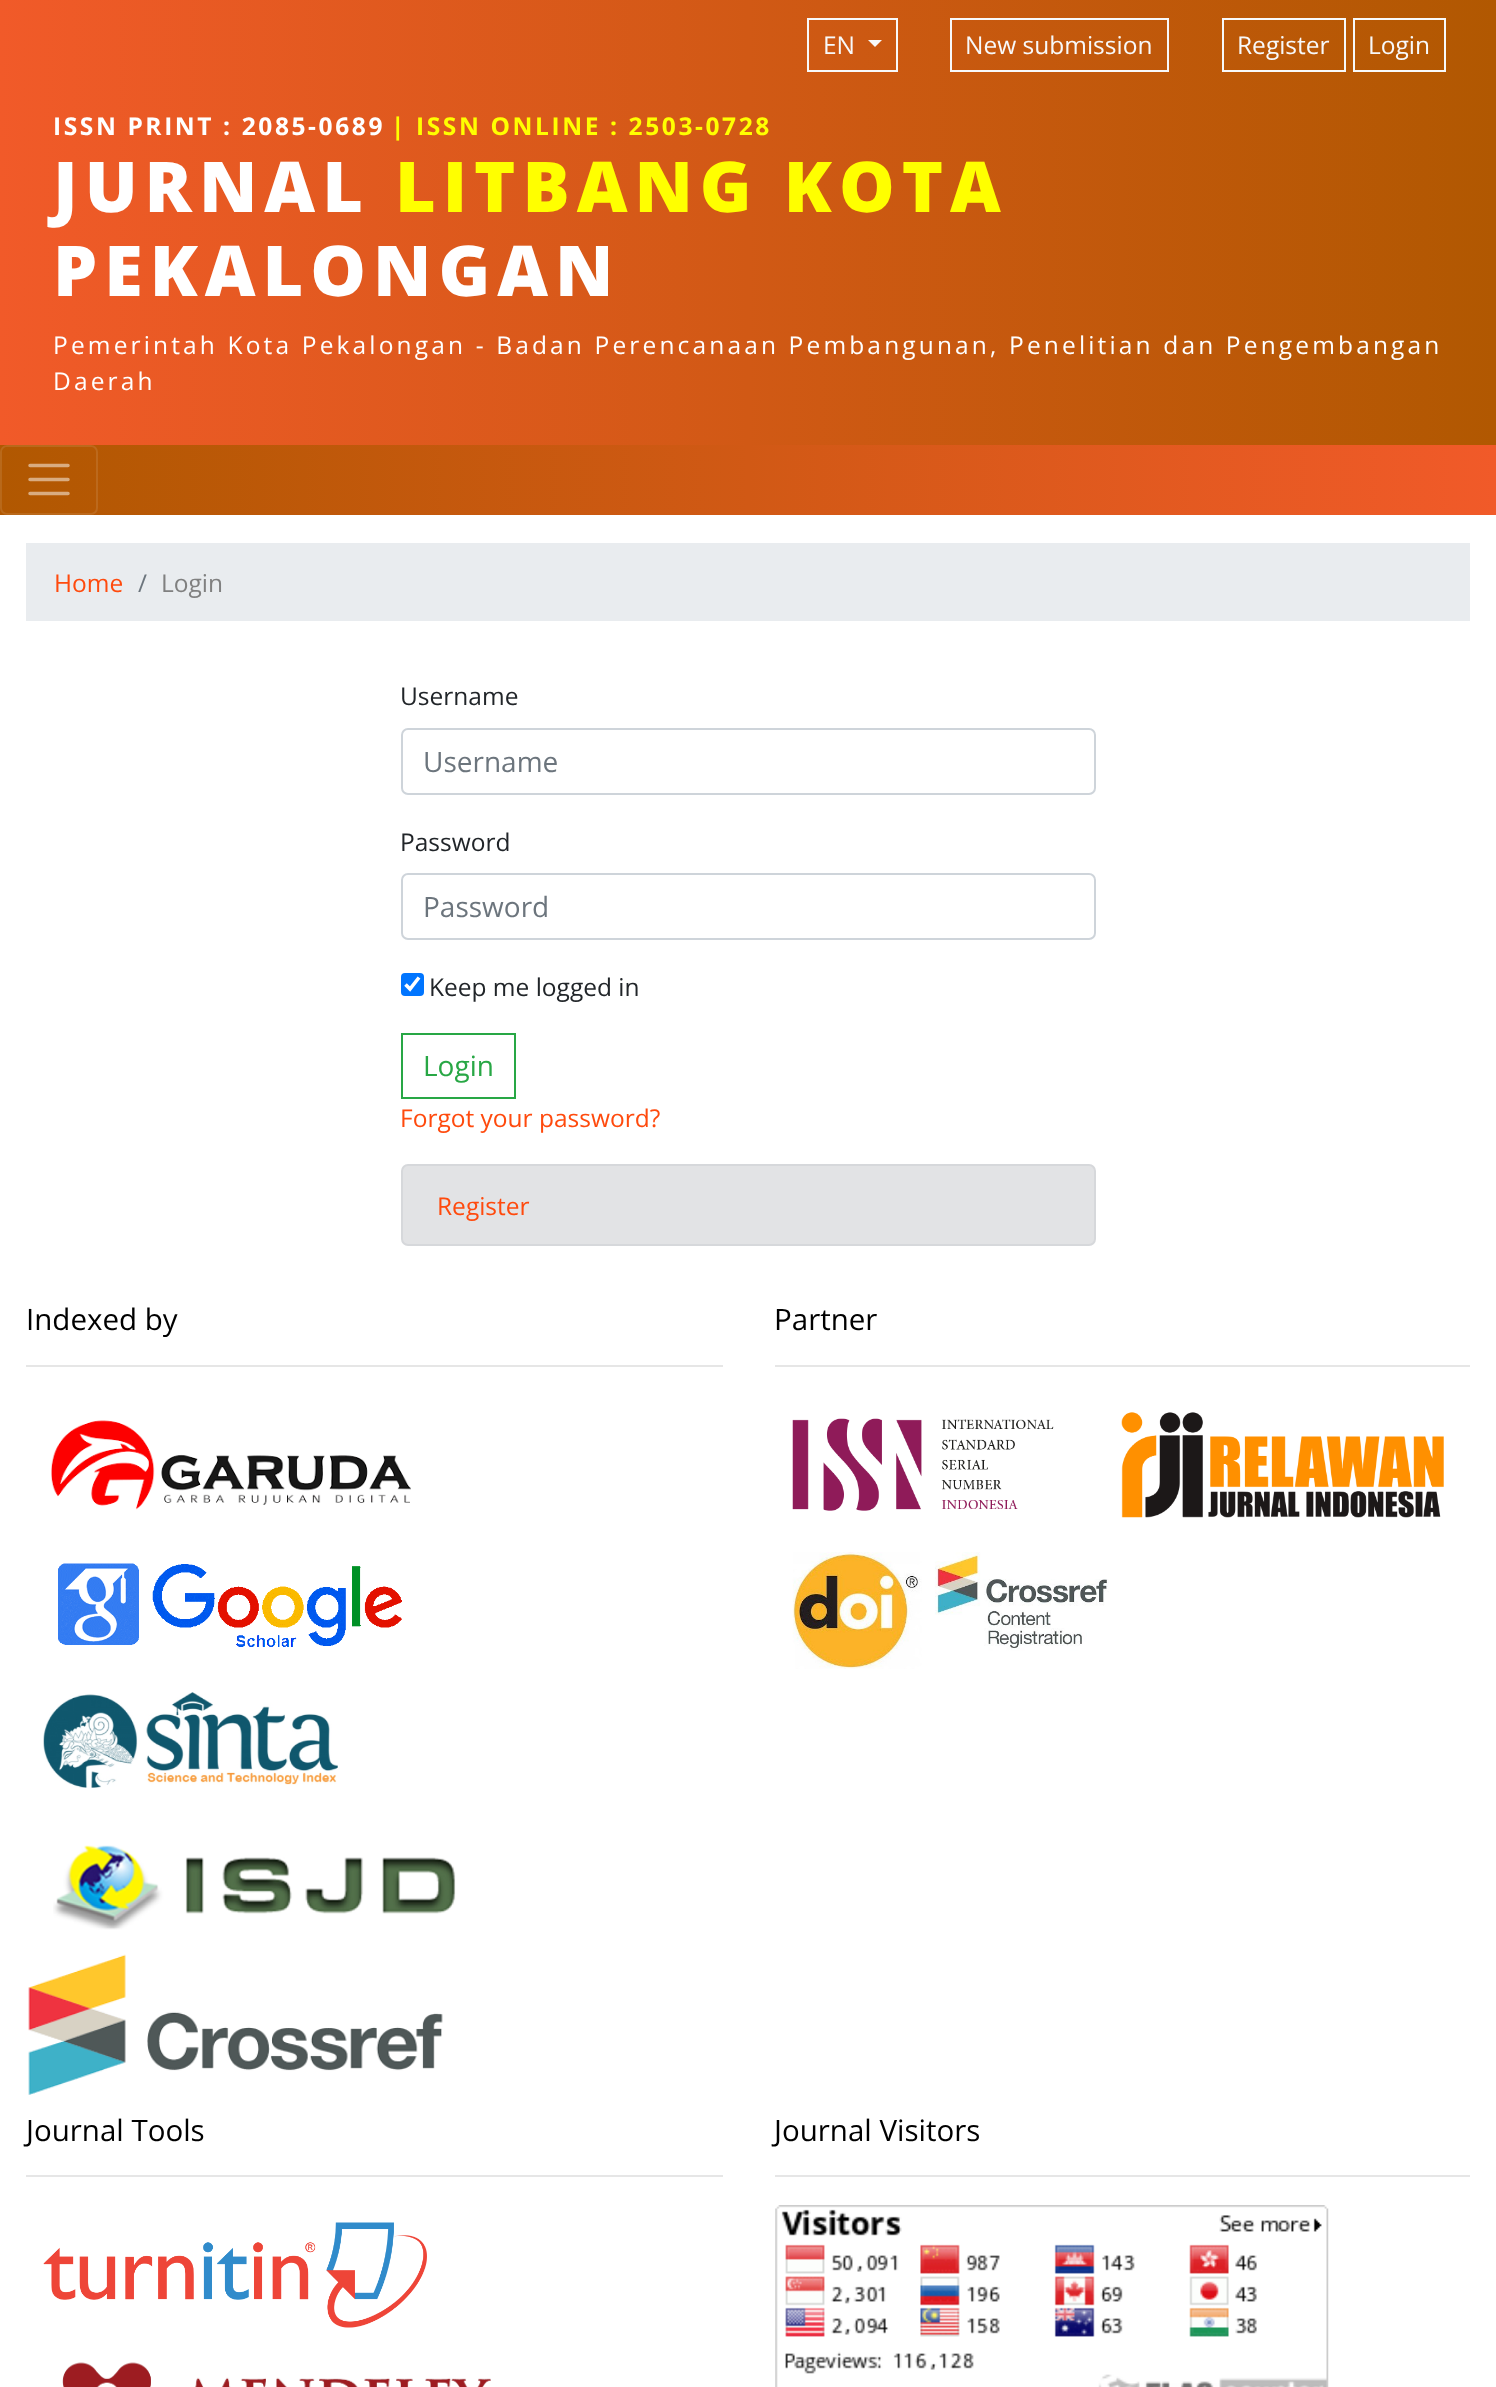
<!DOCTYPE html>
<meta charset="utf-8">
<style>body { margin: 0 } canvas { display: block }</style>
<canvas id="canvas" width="1496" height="2387"></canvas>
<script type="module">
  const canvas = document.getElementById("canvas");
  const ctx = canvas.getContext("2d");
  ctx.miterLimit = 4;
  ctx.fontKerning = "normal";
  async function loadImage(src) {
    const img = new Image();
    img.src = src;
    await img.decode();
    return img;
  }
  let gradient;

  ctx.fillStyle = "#ffffff";
  ctx.fillRect(0, 0, 1496, 2387);
  gradient = ctx.createLinearGradient(1496, 45, 0, 45);
  gradient.addColorStop(0, "#b15801");
  gradient.addColorStop(1, "#f15a29");
  ctx.fillStyle = gradient;
  ctx.fillRect(0, 0, 1496, 89);
  ctx.strokeStyle = "#f8f9fa";
  ctx.lineWidth = 2;
  ctx.strokeRect(808, 19, 89, 52);
  ctx.font = "24.5px Open Sans";
  ctx.fillStyle = "#f8f9fa";
  ctx.fillText("EN", 823, 54);
  ctx.beginPath();
  ctx.moveTo(868, 40);
  ctx.lineTo(882, 40);
  ctx.lineTo(875, 47);
  ctx.closePath();
  ctx.fill();
  ctx.strokeRect(951, 19, 217, 52);
  ctx.fillText("New submission", 965, 54);
  ctx.strokeRect(1223, 19, 122, 52);
  ctx.fillText("Register", 1237, 54);
  ctx.strokeRect(1354, 19, 91, 52);
  ctx.fillText("Login", 1368, 54);
  gradient = ctx.createLinearGradient(1496, 267, 0, 267);
  gradient.addColorStop(0, "#b15801");
  gradient.addColorStop(1, "#f15a29");
  ctx.fillStyle = gradient;
  ctx.fillRect(0, 89, 1496, 356);
  ctx.letterSpacing = "2.6px";
  ctx.font = "bold 24.5px Open Sans";
  ctx.fillStyle = "#ffffff";
  ctx.fillText("ISSN PRINT : 2085-0689", 53, 135);
  ctx.fillStyle = "#ffff00";
  ctx.fillText("| ISSN ONLINE : 2503-0728", 391, 135);
  ctx.letterSpacing = "7px";
  ctx.font = "800 70px Open Sans";
  ctx.fillStyle = "#ffffff";
  ctx.fillText("JURNAL", 53, 212);
  ctx.fillStyle = "#ffff00";
  ctx.fillText("LITBANG KOTA", 395, 212);
  ctx.fillStyle = "#ffffff";
  ctx.fillText("PEKALONGAN", 53, 296);
  ctx.letterSpacing = "3.15px";
  ctx.font = "24.5px Open Sans";
  ctx.fillText("Pemerintah Kota Pekalongan - Badan Perencanaan Pembangunan, Penelitian dan Pengembangan", 53, 354);
  ctx.fillText("Daerah", 53, 390);
  gradient = ctx.createLinearGradient(0, 480, 1496, 480);
  gradient.addColorStop(0, "#b15801");
  gradient.addColorStop(1, "#f15a29");
  ctx.fillStyle = gradient;
  ctx.fillRect(0, 445, 1496, 70);
  ctx.beginPath();
  ctx.roundRect(1, 446, 96, 68, 6);
  ctx.strokeStyle = "rgba(255, 255, 255, 0.1)";
  ctx.stroke();
  ctx.beginPath();
  ctx.moveTo(30, 465.5);
  ctx.lineTo(68, 465.5);
  ctx.moveTo(30, 479.5);
  ctx.lineTo(68, 479.5);
  ctx.moveTo(30, 493.5);
  ctx.lineTo(68, 493.5);
  ctx.strokeStyle = "#d9ac81";
  ctx.lineWidth = 3.5;
  ctx.lineCap = "round";
  ctx.stroke();
  ctx.fillStyle = "#e9ecef";
  ctx.fillRect(26, 543, 1444, 78);
  ctx.letterSpacing = "0px";
  ctx.fillStyle = "#ff4a0d";
  ctx.fillText("Home", 54, 592);
  ctx.fillStyle = "#6c757d";
  ctx.fillText("/", 138, 592);
  ctx.fillStyle = "#808080";
  ctx.fillText("Login", 161, 592);
  ctx.fillStyle = "#212529";
  ctx.fillText("Username", 400, 705);
  ctx.beginPath();
  ctx.roundRect(402, 729, 693, 65, 6);
  ctx.strokeStyle = "#ced4da";
  ctx.lineWidth = 2;
  ctx.stroke();
  ctx.font = "28px Open Sans";
  ctx.fillStyle = "#6c757d";
  ctx.fillText("Username", 423, 772);
  ctx.font = "24.5px Open Sans";
  ctx.fillStyle = "#212529";
  ctx.fillText("Password", 400, 851);
  ctx.beginPath();
  ctx.roundRect(402, 874, 693, 65, 6);
  ctx.stroke();
  ctx.font = "28px Open Sans";
  ctx.fillStyle = "#6c757d";
  ctx.fillText("Password", 423, 917);
  ctx.fillStyle = "#0075ff";
  ctx.beginPath();
  ctx.roundRect(401, 973, 23, 23, 4);
  ctx.fill();
  ctx.beginPath();
  ctx.moveTo(405.5, 984.5);
  ctx.lineTo(410, 989);
  ctx.lineTo(419, 977.5);
  ctx.strokeStyle = "#ffffff";
  ctx.lineWidth = 3.6;
  ctx.lineCap = "butt";
  ctx.stroke();
  ctx.font = "24.5px Open Sans";
  ctx.fillStyle = "#212529";
  ctx.fillText("Keep me logged in", 429, 996);
  ctx.strokeStyle = "#28a745";
  ctx.lineWidth = 2;
  ctx.strokeRect(402, 1034, 113, 64);
  ctx.font = "28px Open Sans";
  ctx.fillStyle = "#28a745";
  ctx.fillText("Login", 423, 1076);
  ctx.font = "24.5px Open Sans";
  ctx.fillStyle = "#ff4a0d";
  ctx.fillText("Forgot your password?", 400, 1127);
  ctx.fillStyle = "#e2e3e5";
  ctx.beginPath();
  ctx.roundRect(402, 1165, 693, 80, 6);
  ctx.fill();
  ctx.strokeStyle = "#d6d8db";
  ctx.stroke();
  ctx.fillStyle = "#ff4a0d";
  ctx.fillText("Register", 437, 1215);
  ctx.font = "29.5px Open Sans";
  ctx.fillStyle = "#000000";
  ctx.fillText("Indexed by", 26, 1330);
  ctx.fillStyle = "#e6e6e6";
  ctx.fillRect(26, 1365, 697, 2);
  ctx.drawImage(await loadImage("img1.png"), 51, 1420, 360, 90);
  ctx.drawImage(await loadImage("img2.png"), 58, 1563, 344, 84);
  ctx.drawImage(await loadImage("img3.png"), 43, 1692, 295, 96);
  ctx.drawImage(await loadImage("img4.png"), 53, 1845, 403, 85);
  ctx.drawImage(await loadImage("img5.png"), 28, 1954, 415, 141);
  ctx.fillStyle = "#000000";
  ctx.fillText("Partner", 774, 1330);
  ctx.fillStyle = "#e6e6e6";
  ctx.fillRect(775, 1365, 695, 2);
  ctx.drawImage(await loadImage("img6.png"), 792, 1418, 262, 93);
  ctx.drawImage(await loadImage("img7.png"), 1121, 1412, 323, 106);
  ctx.drawImage(await loadImage("img8.png"), 792, 1552, 317, 117);
  ctx.fillStyle = "#000000";
  ctx.fillText("Journal Tools", 26, 2141);
  ctx.fillStyle = "#e6e6e6";
  ctx.fillRect(26, 2175, 697, 2);
  ctx.drawImage(await loadImage("img9.png"), 43, 2222, 384, 106);
  ctx.drawImage(await loadImage("img10.png"), 62, 2362, 429, 25);
  ctx.fillStyle = "#000000";
  ctx.fillText("Journal Visitors", 774, 2141);
  ctx.fillStyle = "#e6e6e6";
  ctx.fillRect(775, 2175, 695, 2);
  ctx.drawImage(await loadImage("img11.png"), 775, 2205, 554, 182);
</script>
